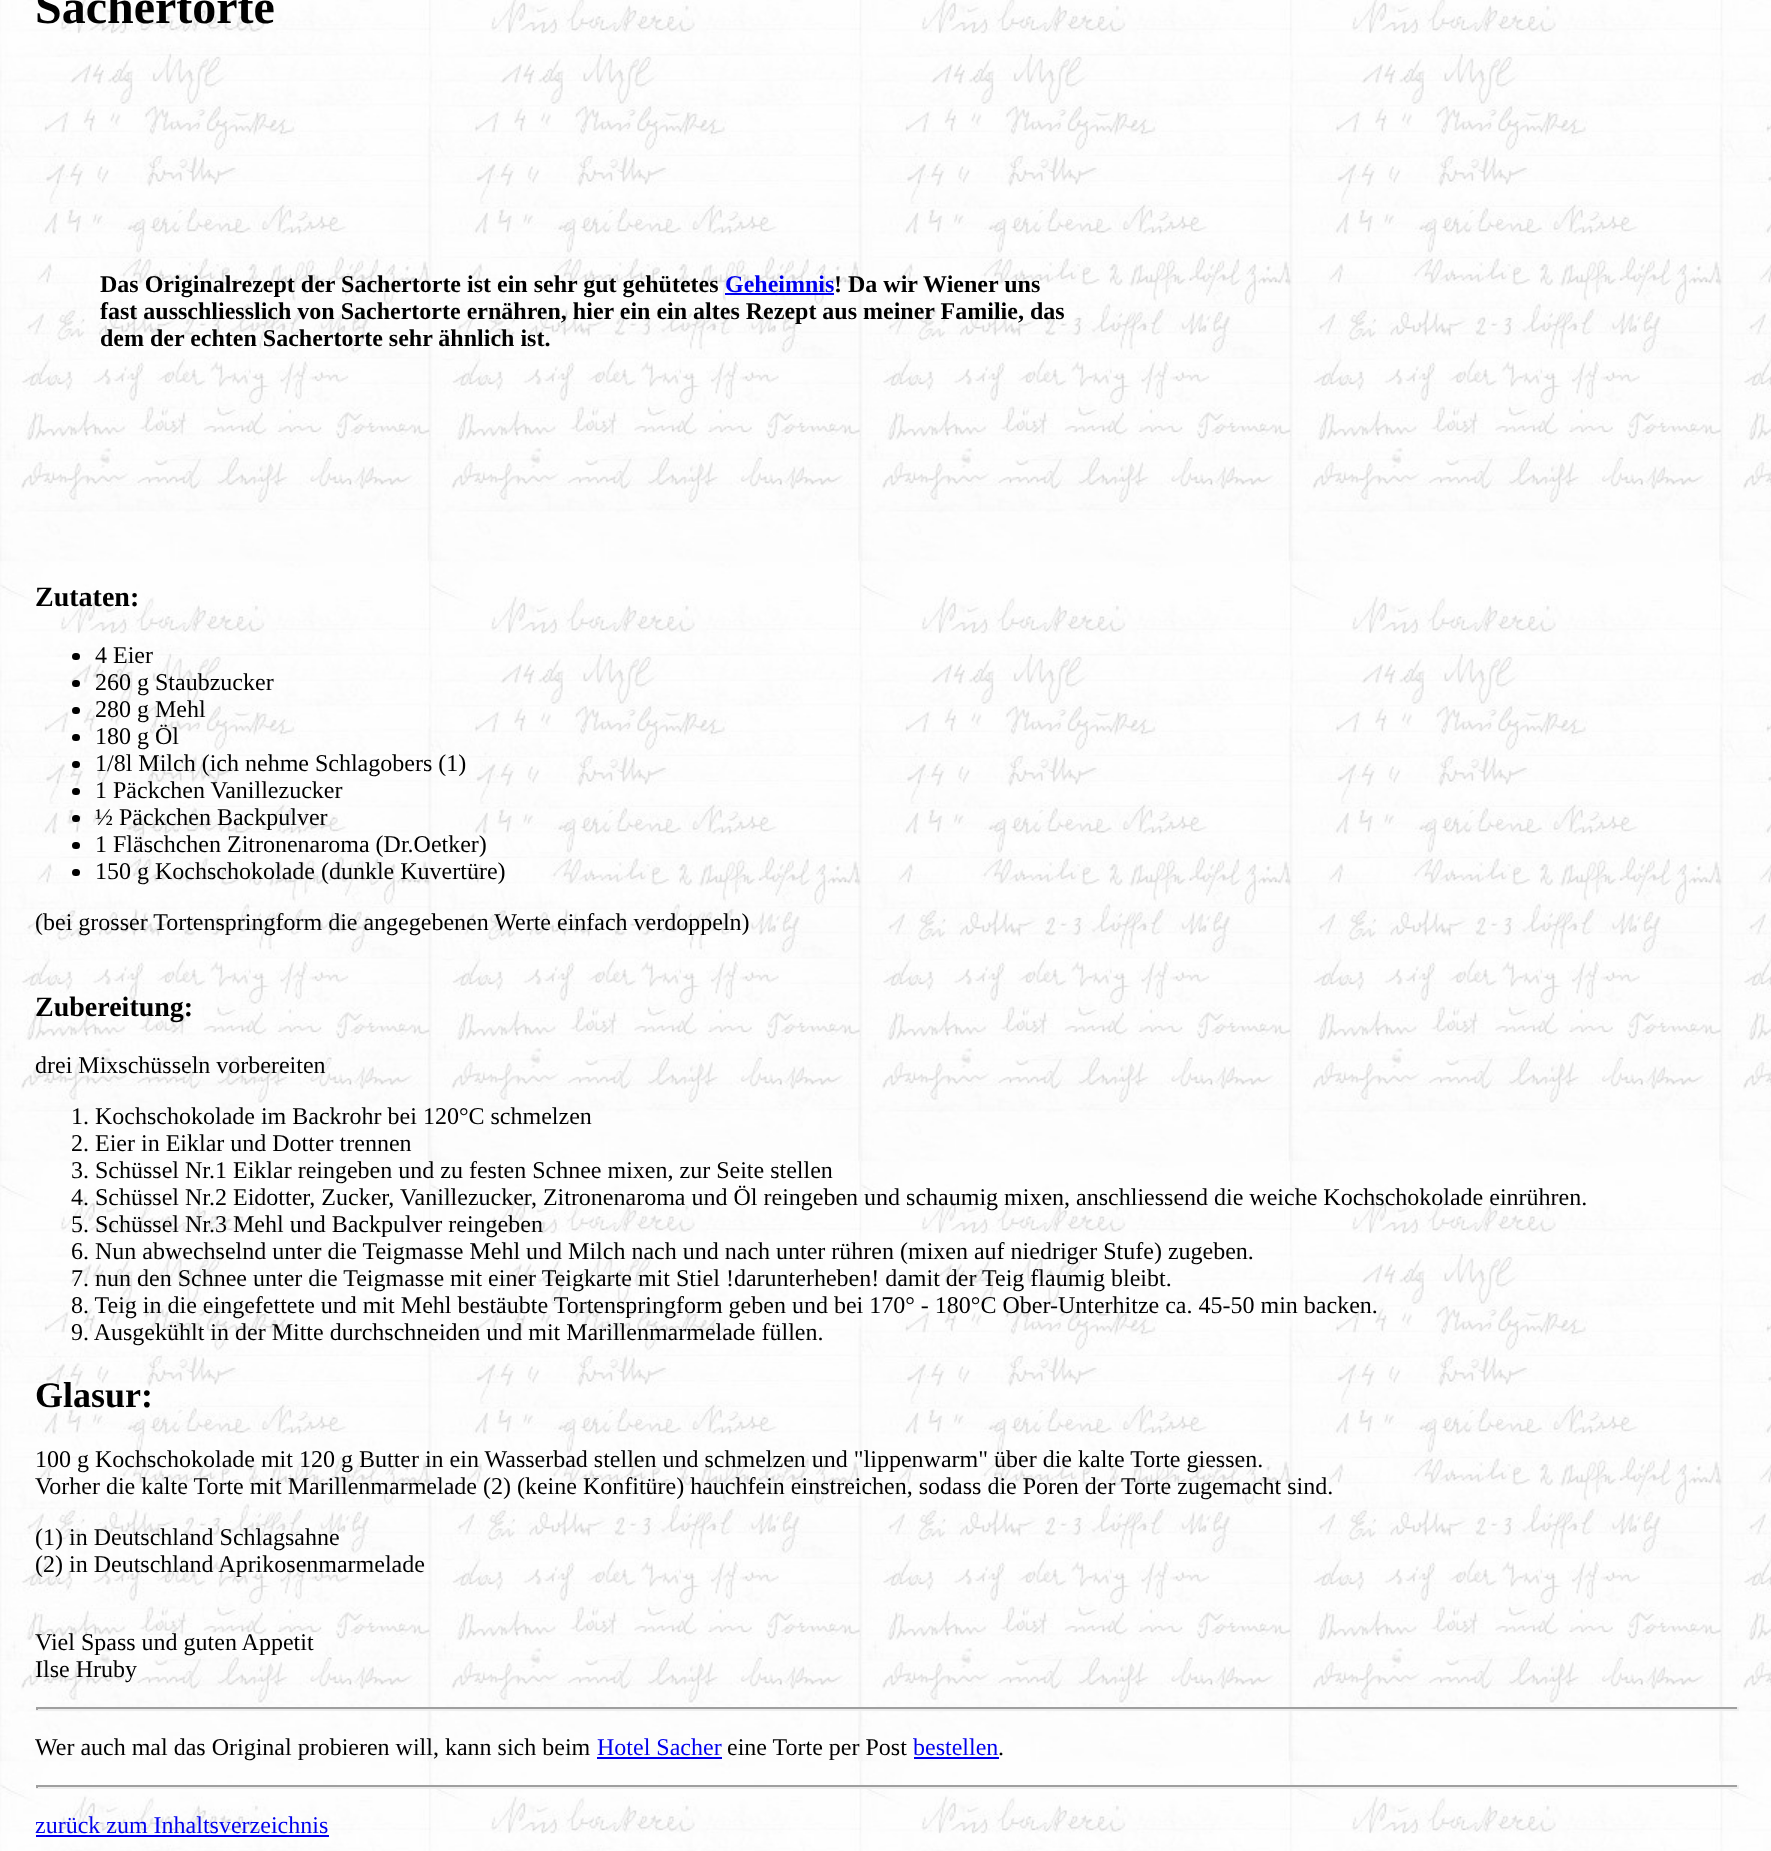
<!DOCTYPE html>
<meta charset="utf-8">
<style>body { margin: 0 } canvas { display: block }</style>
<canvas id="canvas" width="1771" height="1851"></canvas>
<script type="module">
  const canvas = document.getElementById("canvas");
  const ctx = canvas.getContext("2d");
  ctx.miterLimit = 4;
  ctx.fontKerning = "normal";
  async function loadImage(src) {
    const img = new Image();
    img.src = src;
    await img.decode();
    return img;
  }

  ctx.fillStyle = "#ffffff";
  ctx.fillRect(0, 0, 1771, 1851);
  ctx.drawImage(await loadImage("img1.png"), 0, 0, 1771, 1851);
  ctx.font = "bold 48px Liberation Serif";
  ctx.fillStyle = "#000000";
  ctx.fillText("Sachertorte", 35, 23);
  ctx.font = "bold 24px Liberation Serif";
  ctx.fillText("Das Originalrezept der Sachertorte ist ein sehr gut gehütetes", 100, 292);
  ctx.fillStyle = "#0000ee";
  ctx.fillText("Geheimnis", 725, 292);
  ctx.fillRect(725, 293, 109, 2);
  ctx.fillStyle = "#000000";
  ctx.fillText("! Da wir Wiener uns", 834, 292);
  ctx.fillText("fast ausschliesslich von Sachertorte ernähren, hier ein ein altes Rezept aus meiner Familie, das", 100, 319);
  ctx.fillText("dem der echten Sachertorte sehr ähnlich ist.", 100, 346);
  ctx.font = "bold 28px Liberation Serif";
  ctx.fillText("Zutaten:", 35, 606);
  ctx.beginPath();
  ctx.roundRect(72, 653, 8, 7, 3.5);
  ctx.fill();
  ctx.font = "24px Liberation Serif";
  ctx.fillText("4 Eier", 95, 663);
  ctx.beginPath();
  ctx.roundRect(72, 680, 8, 7, 3.5);
  ctx.fill();
  ctx.fillText("260 g Staubzucker", 95, 690);
  ctx.beginPath();
  ctx.roundRect(72, 707, 8, 7, 3.5);
  ctx.fill();
  ctx.fillText("280 g Mehl", 95, 717);
  ctx.beginPath();
  ctx.roundRect(72, 734, 8, 7, 3.5);
  ctx.fill();
  ctx.fillText("180 g Öl", 95, 744);
  ctx.beginPath();
  ctx.roundRect(72, 761, 8, 7, 3.5);
  ctx.fill();
  ctx.fillText("1/8l Milch (ich nehme Schlagobers (1)", 95, 771);
  ctx.beginPath();
  ctx.roundRect(72, 788, 8, 7, 3.5);
  ctx.fill();
  ctx.fillText("1 Päckchen Vanillezucker", 95, 798);
  ctx.beginPath();
  ctx.roundRect(72, 815, 8, 7, 3.5);
  ctx.fill();
  ctx.fillText("½ Päckchen Backpulver", 95, 825);
  ctx.beginPath();
  ctx.roundRect(72, 842, 8, 7, 3.5);
  ctx.fill();
  ctx.fillText("1 Fläschchen Zitronenaroma (Dr.Oetker)", 95, 852);
  ctx.beginPath();
  ctx.roundRect(72, 869, 8, 7, 3.5);
  ctx.fill();
  ctx.fillText("150 g Kochschokolade (dunkle Kuvertüre)", 95, 879);
  ctx.fillText("(bei grosser Tortenspringform die angegebenen Werte einfach verdoppeln)", 35, 930);
  ctx.font = "bold 28px Liberation Serif";
  ctx.fillText("Zubereitung:", 35, 1016);
  ctx.font = "24px Liberation Serif";
  ctx.fillText("drei Mixschüsseln vorbereiten", 35, 1073);
  ctx.fillText("1. Kochschokolade im Backrohr bei 120°C schmelzen", 71, 1124);
  ctx.fillText("2. Eier in Eiklar und Dotter trennen", 71, 1151);
  ctx.fillText("3. Schüssel Nr.1 Eiklar reingeben und zu festen Schnee mixen, zur Seite stellen", 71, 1178);
  ctx.fillText("4. Schüssel Nr.2 Eidotter, Zucker, Vanillezucker, Zitronenaroma und Öl reingeben und schaumig mixen, anschliessend die weiche Kochschokolade einrühren.", 71, 1205);
  ctx.fillText("5. Schüssel Nr.3 Mehl und Backpulver reingeben", 71, 1232);
  ctx.fillText("6. Nun abwechselnd unter die Teigmasse Mehl und Milch nach und nach unter rühren (mixen auf niedriger Stufe) zugeben.", 71, 1259);
  ctx.fillText("7. nun den Schnee unter die Teigmasse mit einer Teigkarte mit Stiel !darunterheben! damit der Teig flaumig bleibt.", 71, 1286);
  ctx.fillText("8. Teig in die eingefettete und mit Mehl bestäubte Tortenspringform geben und bei 170° - 180°C Ober-Unterhitze ca. 45-50 min backen.", 71, 1313);
  ctx.fillText("9. Ausgekühlt in der Mitte durchschneiden und mit Marillenmarmelade füllen.", 71, 1340);
  ctx.font = "bold 36px Liberation Serif";
  ctx.fillText("Glasur:", 35, 1407);
  ctx.font = "24px Liberation Serif";
  ctx.fillText("100 g Kochschokolade mit 120 g Butter in ein Wasserbad stellen und schmelzen und \"lippenwarm\" über die kalte Torte giessen.", 35, 1467);
  ctx.fillText("Vorher die kalte Torte mit Marillenmarmelade (2) (keine Konfitüre) hauchfein einstreichen, sodass die Poren der Torte zugemacht sind.", 35, 1494);
  ctx.fillText("(1) in Deutschland Schlagsahne", 35, 1545);
  ctx.fillText("(2) in Deutschland Aprikosenmarmelade", 35, 1572);
  ctx.fillText("Viel Spass und guten Appetit", 35, 1650);
  ctx.fillText("Ilse Hruby", 35, 1677);
  ctx.fillStyle = "#9f9f9f";
  ctx.fillRect(36, 1707, 1703, 2);
  ctx.fillStyle = "#eeeeee";
  ctx.fillRect(1737, 1707, 2, 3);
  ctx.fillRect(36, 1709, 1703, 2);
  ctx.fillStyle = "#9f9f9f";
  ctx.fillRect(36, 1707, 2, 3);
  ctx.fillStyle = "#000000";
  ctx.fillText("Wer auch mal das Original probieren will, kann sich beim", 35, 1755);
  ctx.fillStyle = "#0000ee";
  ctx.fillText("Hotel Sacher", 597, 1755);
  ctx.fillRect(597, 1757, 125, 2);
  ctx.fillStyle = "#000000";
  ctx.fillText("eine Torte per Post", 727, 1755);
  ctx.fillStyle = "#0000ee";
  ctx.fillText("bestellen", 913, 1755);
  ctx.fillRect(914, 1757, 85, 2);
  ctx.fillStyle = "#000000";
  ctx.fillText(".", 998, 1755);
  ctx.fillStyle = "#9f9f9f";
  ctx.fillRect(36, 1785, 1703, 2);
  ctx.fillStyle = "#eeeeee";
  ctx.fillRect(1737, 1785, 2, 3);
  ctx.fillRect(36, 1787, 1703, 2);
  ctx.fillStyle = "#9f9f9f";
  ctx.fillRect(36, 1785, 2, 3);
  ctx.fillStyle = "#0000ee";
  ctx.fillText("zurück zum Inhaltsverzeichnis", 35, 1833);
  ctx.fillRect(36, 1835, 293, 2);
</script>
